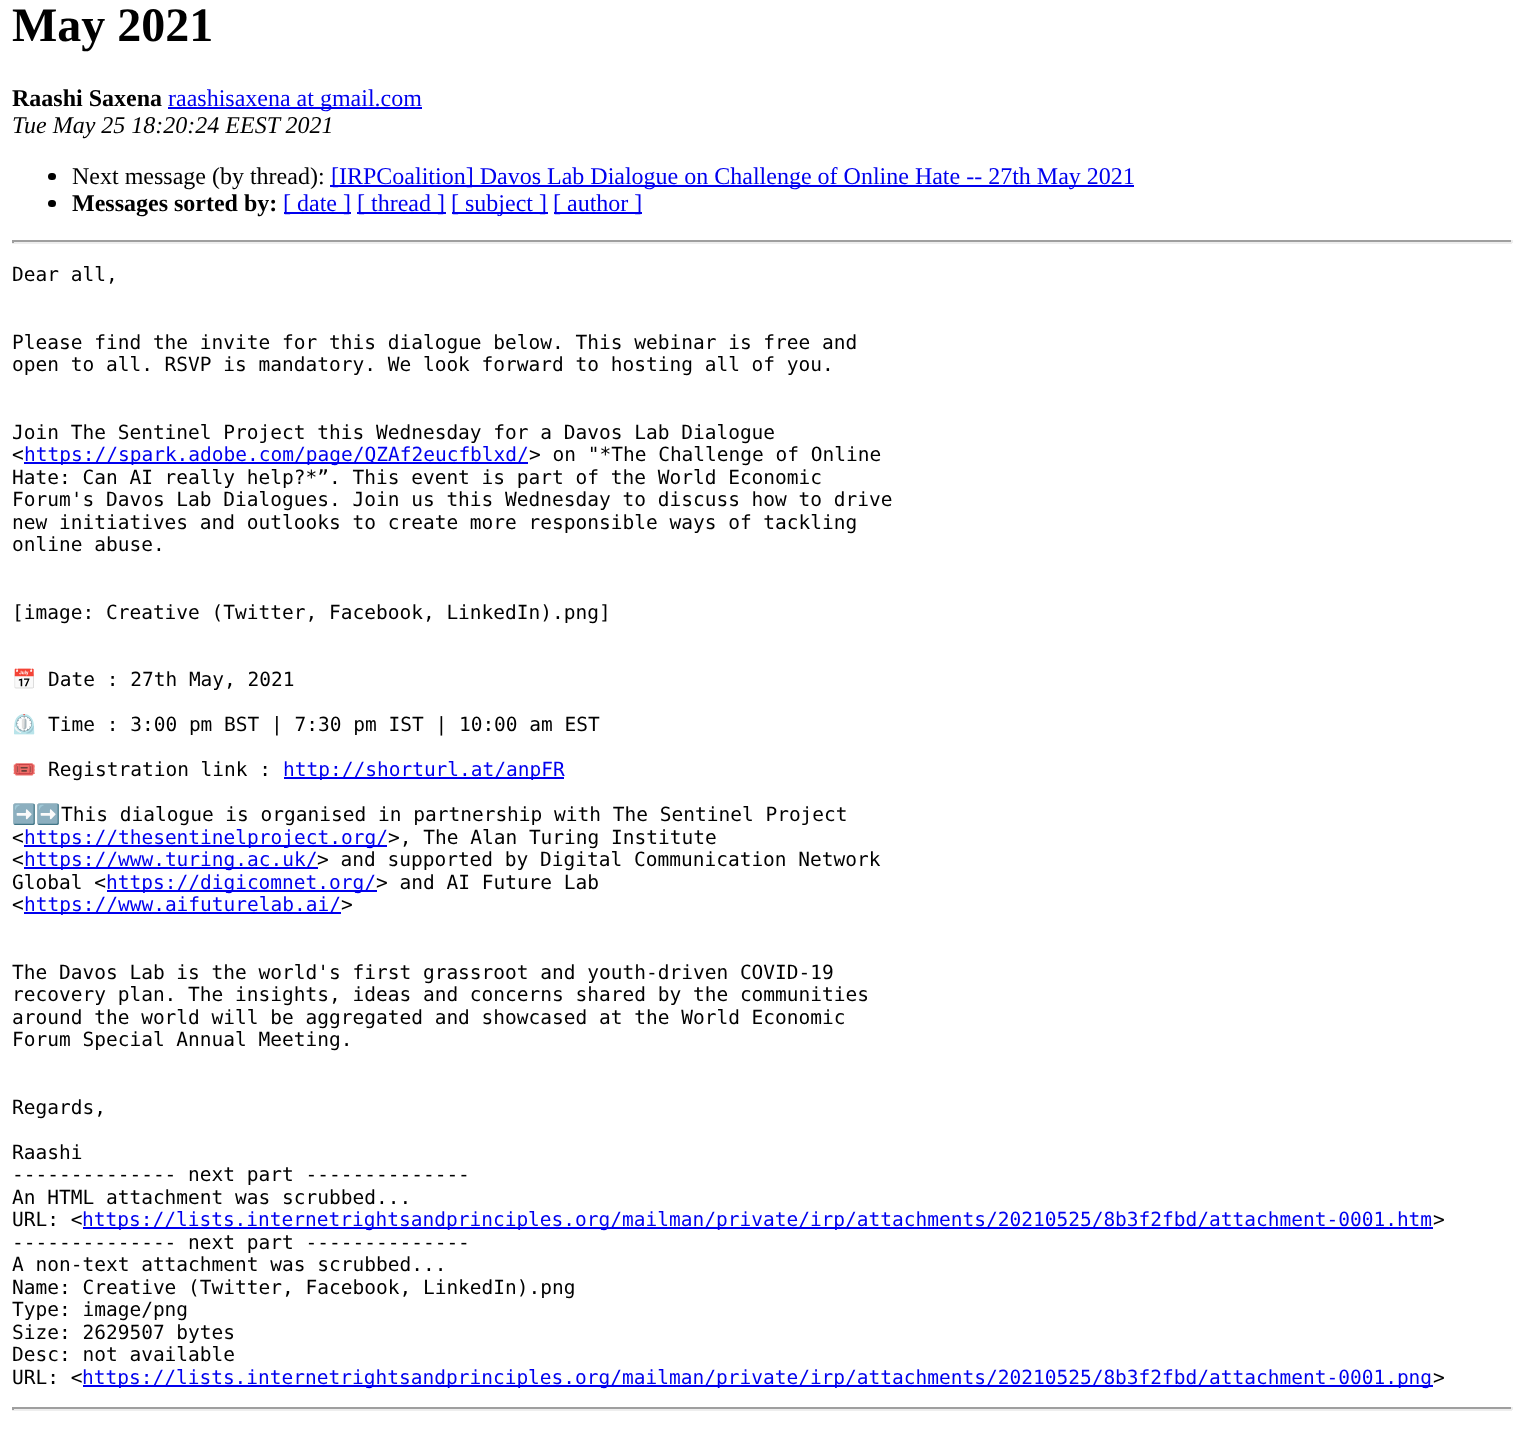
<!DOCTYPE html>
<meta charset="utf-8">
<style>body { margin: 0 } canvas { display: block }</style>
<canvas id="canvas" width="1523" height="1443"></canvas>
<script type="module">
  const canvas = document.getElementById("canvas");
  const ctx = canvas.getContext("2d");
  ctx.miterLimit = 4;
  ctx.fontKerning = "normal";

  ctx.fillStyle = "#ffffff";
  ctx.fillRect(0, 0, 1523, 1443);
  ctx.font = "bold 48px Liberation Serif";
  ctx.fillStyle = "#000000";
  ctx.fillText("May 2021", 12, 41);
  ctx.font = "bold 24px Liberation Serif";
  ctx.fillText("Raashi Saxena", 12, 106);
  ctx.fillStyle = "#0000ee";
  ctx.fillRect(168, 107, 254, 2);
  ctx.font = "24px Liberation Serif";
  ctx.fillText("raashisaxena at gmail.com", 168, 106);
  ctx.font = "italic 24px Liberation Serif";
  ctx.fillStyle = "#000000";
  ctx.fillText("Tue May 25 18:20:24 EEST 2021", 12, 133);
  ctx.beginPath();
  ctx.roundRect(48, 173, 8, 7, 3.5);
  ctx.fill();
  ctx.font = "24px Liberation Serif";
  ctx.fillText("Next message (by thread):", 72, 184);
  ctx.fillStyle = "#0000ee";
  ctx.fillRect(330, 185, 804, 2);
  ctx.fillText("[IRPCoalition] Davos Lab Dialogue on Challenge of Online Hate -- 27th May 2021", 331, 184);
  ctx.fillStyle = "#000000";
  ctx.beginPath();
  ctx.roundRect(48, 200, 8, 7, 3.5);
  ctx.fill();
  ctx.font = "bold 24px Liberation Serif";
  ctx.fillText("Messages sorted by:", 72, 211);
  ctx.fillStyle = "#0000ee";
  ctx.fillRect(284, 212, 67, 2);
  ctx.font = "24px Liberation Serif";
  ctx.fillText("[ date ]", 283, 211);
  ctx.fillRect(357, 212, 89, 2);
  ctx.fillText("[ thread ]", 357, 211);
  ctx.fillRect(452, 212, 96, 2);
  ctx.fillText("[ subject ]", 451, 211);
  ctx.fillRect(554, 212, 88, 2);
  ctx.fillText("[ author ]", 553, 211);
  ctx.fillStyle = "#9f9f9f";
  ctx.fillRect(12, 240, 1500, 2);
  ctx.fillStyle = "#eeeeee";
  ctx.fillRect(1511, 240, 2, 3);
  ctx.fillRect(12, 242, 1500, 2);
  ctx.fillStyle = "#9f9f9f";
  ctx.fillRect(12, 240, 2, 3);
  ctx.font = "19.5px DejaVu Sans Mono";
  ctx.fillStyle = "#000000";
  ctx.fillText("Dear all,", 12, 281);
  ctx.fillText("Please find the invite for this dialogue below. This webinar is free and", 12, 349);
  ctx.fillText("open to all. RSVP is mandatory. We look forward to hosting all of you.", 12, 371);
  ctx.fillText("Join The Sentinel Project this Wednesday for a Davos Lab Dialogue", 12, 439);
  ctx.fillText("<", 12, 461);
  ctx.fillStyle = "#0000ee";
  ctx.fillRect(24, 462, 504, 2);
  ctx.fillText("https://spark.adobe.com/page/QZAf2eucfblxd/", 24, 461);
  ctx.fillStyle = "#000000";
  ctx.fillText("> on \"*The Challenge of Online", 529, 461);
  ctx.fillText("Hate: Can AI really help?*”. This event is part of the World Economic", 12, 484);
  ctx.fillText("Forum's Davos Lab Dialogues. Join us this Wednesday to discuss how to drive", 12, 506);
  ctx.fillText("new initiatives and outlooks to create more responsible ways of tackling", 12, 529);
  ctx.fillText("online abuse.", 12, 551);
  ctx.fillText("[image: Creative (Twitter, Facebook, LinkedIn).png]", 12, 619);
  ctx.font = "19.5px Noto Color Emoji";
  ctx.fillText("📅", 12, 686);
  ctx.font = "19.5px DejaVu Sans Mono";
  ctx.fillText("Date : 27th May, 2021", 48, 686);
  ctx.font = "19.5px Noto Color Emoji";
  ctx.fillText("⏲️", 12, 731);
  ctx.font = "19.5px DejaVu Sans Mono";
  ctx.fillText("Time : 3:00 pm BST | 7:30 pm IST | 10:00 am EST", 48, 731);
  ctx.font = "19.5px Noto Color Emoji";
  ctx.fillText("🎟️", 12, 776);
  ctx.font = "19.5px DejaVu Sans Mono";
  ctx.fillText("Registration link :", 48, 776);
  ctx.fillStyle = "#0000ee";
  ctx.fillRect(284, 777, 280, 2);
  ctx.fillText("http://shorturl.at/anpFR", 283, 776);
  ctx.font = "19.5px Noto Color Emoji";
  ctx.fillStyle = "#000000";
  ctx.fillText("➡️➡️", 12, 821);
  ctx.font = "19.5px DejaVu Sans Mono";
  ctx.fillText("This dialogue is organised in partnership with The Sentinel Project", 61, 821);
  ctx.fillText("<", 12, 844);
  ctx.fillStyle = "#0000ee";
  ctx.fillRect(24, 845, 363, 2);
  ctx.fillText("https://thesentinelproject.org/", 24, 844);
  ctx.fillStyle = "#000000";
  ctx.fillText(">, The Alan Turing Institute", 388, 844);
  ctx.fillText("<", 12, 866);
  ctx.fillStyle = "#0000ee";
  ctx.fillRect(24, 867, 294, 2);
  ctx.fillText("https://www.turing.ac.uk/", 24, 866);
  ctx.fillStyle = "#000000";
  ctx.fillText("> and supported by Digital Communication Network", 317, 866);
  ctx.fillText("Global <", 12, 889);
  ctx.fillStyle = "#0000ee";
  ctx.fillRect(107, 890, 270, 2);
  ctx.fillText("https://digicomnet.org/", 106, 889);
  ctx.fillStyle = "#000000";
  ctx.fillText("> and AI Future Lab", 376, 889);
  ctx.fillText("<", 12, 911);
  ctx.fillStyle = "#0000ee";
  ctx.fillRect(24, 912, 317, 2);
  ctx.fillText("https://www.aifuturelab.ai/", 24, 911);
  ctx.fillStyle = "#000000";
  ctx.fillText(">", 341, 911);
  ctx.fillText("The Davos Lab is the world's first grassroot and youth-driven COVID-19", 12, 979);
  ctx.fillText("recovery plan. The insights, ideas and concerns shared by the communities", 12, 1001);
  ctx.fillText("around the world will be aggregated and showcased at the World Economic", 12, 1024);
  ctx.fillText("Forum Special Annual Meeting.", 12, 1046);
  ctx.fillText("Regards,", 12, 1114);
  ctx.fillText("Raashi", 12, 1159);
  ctx.fillText("-------------- next part --------------", 12, 1181);
  ctx.fillText("An HTML attachment was scrubbed...", 12, 1204);
  ctx.fillText("URL: <", 12, 1226);
  ctx.fillStyle = "#0000ee";
  ctx.fillRect(83, 1227, 1350, 2);
  ctx.fillText("https://lists.internetrightsandprinciples.org/mailman/private/irp/attachments/20210525/8b3f2fbd/attachment-0001.htm", 82, 1226);
  ctx.fillStyle = "#000000";
  ctx.fillText(">", 1433, 1226);
  ctx.fillText("-------------- next part --------------", 12, 1249);
  ctx.fillText("A non-text attachment was scrubbed...", 12, 1271);
  ctx.fillText("Name: Creative (Twitter, Facebook, LinkedIn).png", 12, 1294);
  ctx.fillText("Type: image/png", 12, 1316);
  ctx.fillText("Size: 2629507 bytes", 12, 1339);
  ctx.fillText("Desc: not available", 12, 1361);
  ctx.fillText("URL: <", 12, 1384);
  ctx.fillStyle = "#0000ee";
  ctx.fillRect(83, 1385, 1350, 2);
  ctx.fillText("https://lists.internetrightsandprinciples.org/mailman/private/irp/attachments/20210525/8b3f2fbd/attachment-0001.png", 82, 1384);
  ctx.fillStyle = "#000000";
  ctx.fillText(">", 1433, 1384);
  ctx.fillStyle = "#9f9f9f";
  ctx.fillRect(12, 1407, 1500, 2);
  ctx.fillStyle = "#eeeeee";
  ctx.fillRect(1511, 1407, 2, 3);
  ctx.fillRect(12, 1409, 1500, 2);
  ctx.fillStyle = "#9f9f9f";
  ctx.fillRect(12, 1407, 2, 3);
</script>
